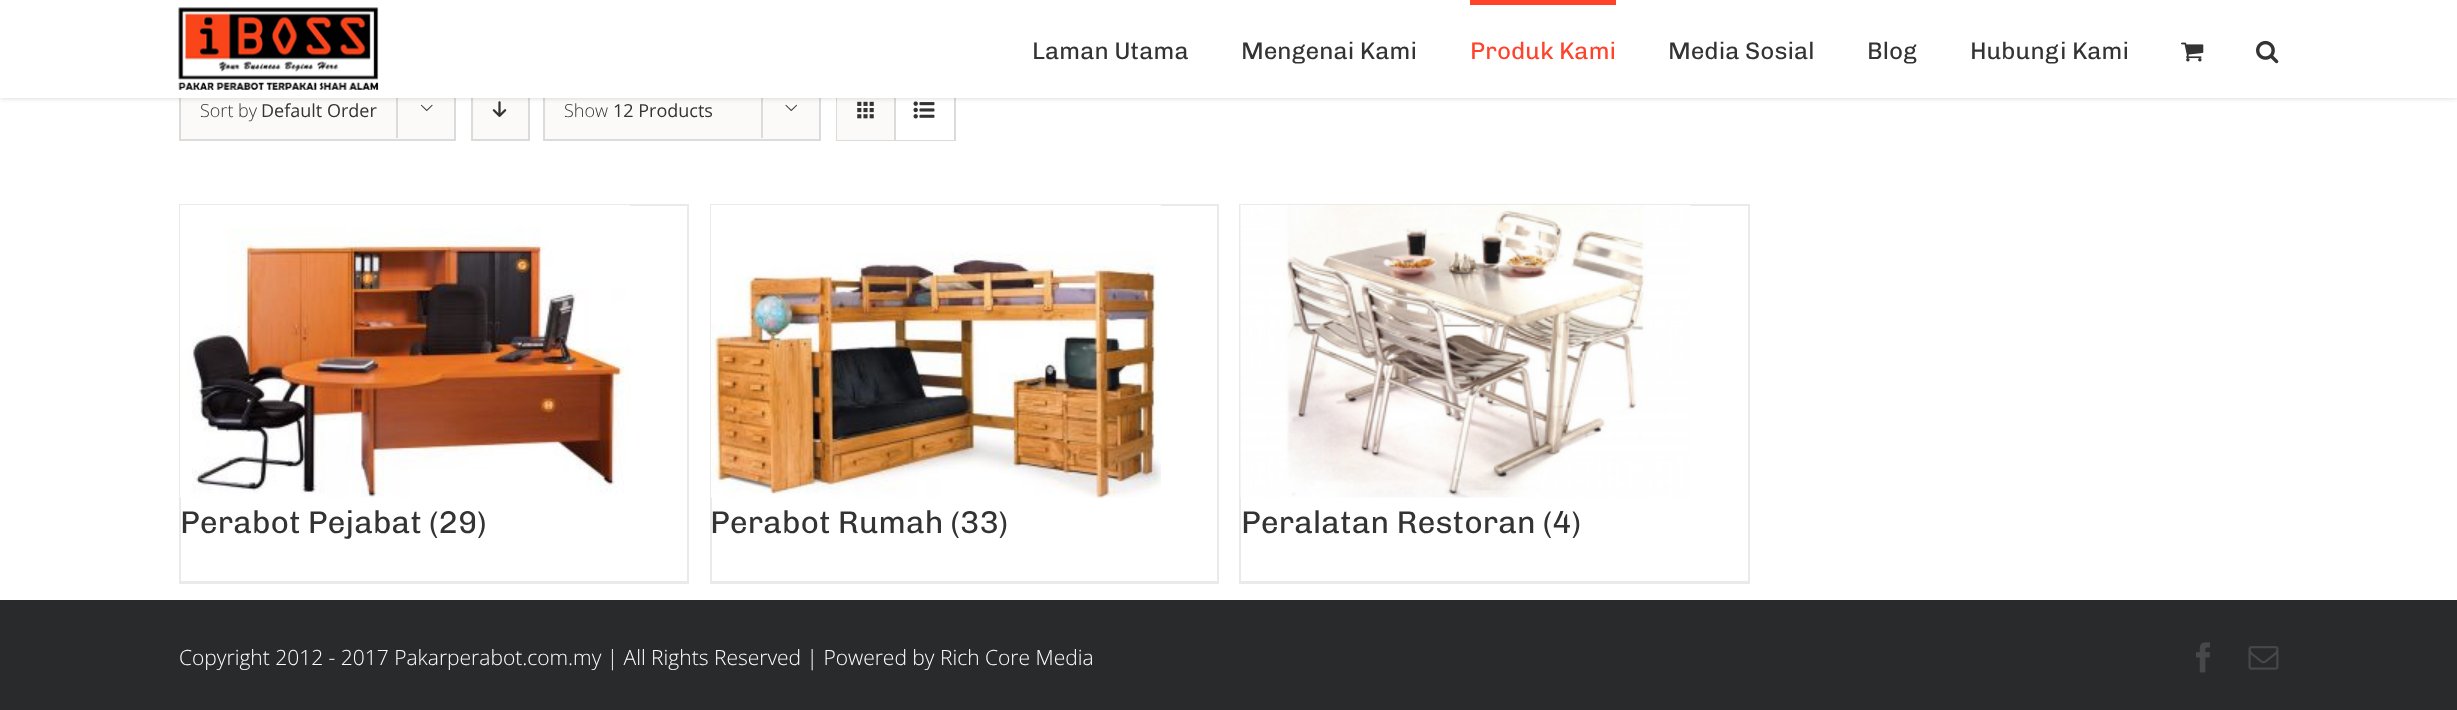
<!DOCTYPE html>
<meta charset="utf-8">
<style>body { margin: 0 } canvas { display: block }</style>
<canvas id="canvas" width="2457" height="710"></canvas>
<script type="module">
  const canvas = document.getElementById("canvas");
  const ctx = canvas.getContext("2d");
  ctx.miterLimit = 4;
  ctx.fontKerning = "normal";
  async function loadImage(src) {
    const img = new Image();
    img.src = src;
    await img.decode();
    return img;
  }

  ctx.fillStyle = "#ffffff";
  ctx.fillRect(0, 0, 2457, 710);
  ctx.fillStyle = "#fbfaf9";
  ctx.fillRect(181, 98, 273, 41);
  ctx.strokeStyle = "#dbdbdb";
  ctx.lineWidth = 2;
  ctx.strokeRect(180, 81, 275, 59);
  ctx.fillStyle = "#dbdbdb";
  ctx.fillRect(396, 98, 2, 40);
  ctx.drawImage(await loadImage("img4.png"), 421, 104, 12, 7);
  ctx.fillStyle = "#fbfaf9";
  ctx.fillRect(473, 98, 55, 41);
  ctx.strokeRect(472, 81, 57, 59);
  ctx.drawImage(await loadImage("img5.png"), 492, 101, 15, 16);
  ctx.fillRect(545, 98, 274, 41);
  ctx.strokeRect(544, 81, 276, 59);
  ctx.fillStyle = "#dbdbdb";
  ctx.fillRect(761, 98, 2, 40);
  ctx.drawImage(await loadImage("img6.png"), 785, 104, 12, 7);
  ctx.strokeRect(837, 81, 118, 59);
  ctx.fillStyle = "#fbfaf9";
  ctx.fillRect(837, 98, 57, 42);
  ctx.fillStyle = "#dbdbdb";
  ctx.fillRect(894, 98, 2, 42);
  ctx.drawImage(await loadImage("img7.png"), 857, 101, 17, 18);
  ctx.drawImage(await loadImage("img8.png"), 913, 101, 22, 18);
  ctx.fillStyle = "rgba(0, 0, 0, 0.12)";
  ctx.filter = "blur(2px)";
  ctx.beginPath();
  ctx.rect(0, 2, 2457, 97);
  ctx.fill();
  ctx.filter = "none";
  ctx.fillStyle = "#ffffff";
  ctx.fillRect(0, 0, 2457, 98);
  ctx.drawImage(await loadImage("img1.png"), 178, 7, 201, 83);
  ctx.font = "500 24px Chivo";
  ctx.fillStyle = "#333333";
  ctx.fillText("Laman Utama", 1032, 59);
  ctx.fillText("Mengenai Kami", 1241, 59);
  ctx.fillStyle = "#ff422a";
  ctx.fillRect(1470, 0, 146, 5);
  ctx.fillText("Produk Kami", 1470, 59);
  ctx.fillStyle = "#333333";
  ctx.fillText("Media Sosial", 1668, 59);
  ctx.fillText("Blog", 1867, 59);
  ctx.fillText("Hubungi Kami", 1970, 59);
  ctx.drawImage(await loadImage("img2.png"), 2181, 42, 23, 20);
  ctx.drawImage(await loadImage("img3.png"), 2256, 40, 23, 24);
  ctx.font = "300 18px Open Sans";
  ctx.fillText("Sort by", 200, 117);
  ctx.font = "18px Open Sans";
  ctx.fillText("Default Order", 261, 117);
  ctx.font = "300 18px Open Sans";
  ctx.fillText("Show", 564, 117);
  ctx.font = "18px Open Sans";
  ctx.fillText("12 Products", 613, 117);
  ctx.fillStyle = "#ffffff";
  ctx.fillRect(896, 139, 58, 1);
  ctx.fillStyle = "#ebeaea";
  ctx.fillRect(179, 204, 510, 2);
  ctx.fillRect(687, 204, 2, 380);
  ctx.fillRect(179, 581, 510, 3);
  ctx.fillRect(179, 204, 2, 380);
  ctx.drawImage(await loadImage("img9.png"), 180, 205, 450, 293);
  ctx.font = "500 31.5px Chivo";
  ctx.fillStyle = "#333333";
  ctx.fillText("Perabot Pejabat (29)", 180, 533);
  ctx.fillStyle = "#ebeaea";
  ctx.fillRect(710, 204, 508, 2);
  ctx.fillRect(1217, 204, 2, 380);
  ctx.fillRect(710, 581, 508, 3);
  ctx.fillRect(710, 204, 2, 380);
  ctx.drawImage(await loadImage("img10.png"), 711, 205, 450, 293);
  ctx.fillStyle = "#333333";
  ctx.fillText("Perabot Rumah (33)", 710, 533);
  ctx.fillStyle = "#ebeaea";
  ctx.fillRect(1239, 204, 510, 2);
  ctx.fillRect(1748, 204, 2, 380);
  ctx.fillRect(1239, 581, 510, 3);
  ctx.fillRect(1239, 204, 2, 380);
  ctx.drawImage(await loadImage("img11.png"), 1240, 205, 451, 293);
  ctx.fillStyle = "#333333";
  ctx.fillText("Peralatan Restoran (4)", 1241, 533);
  ctx.fillStyle = "#282a2b";
  ctx.fillRect(0, 600, 2457, 110);
  ctx.font = "300 21px Open Sans";
  ctx.fillStyle = "#ffffff";
  ctx.fillText("Copyright 2012 - 2017 Pakarperabot.com.my | All Rights Reserved | Powered by Rich Core Media", 179, 665);
  ctx.drawImage(await loadImage("img12.png"), 2196, 642, 14, 31);
  ctx.drawImage(await loadImage("img13.png"), 2248, 646, 31, 24);
</script>
